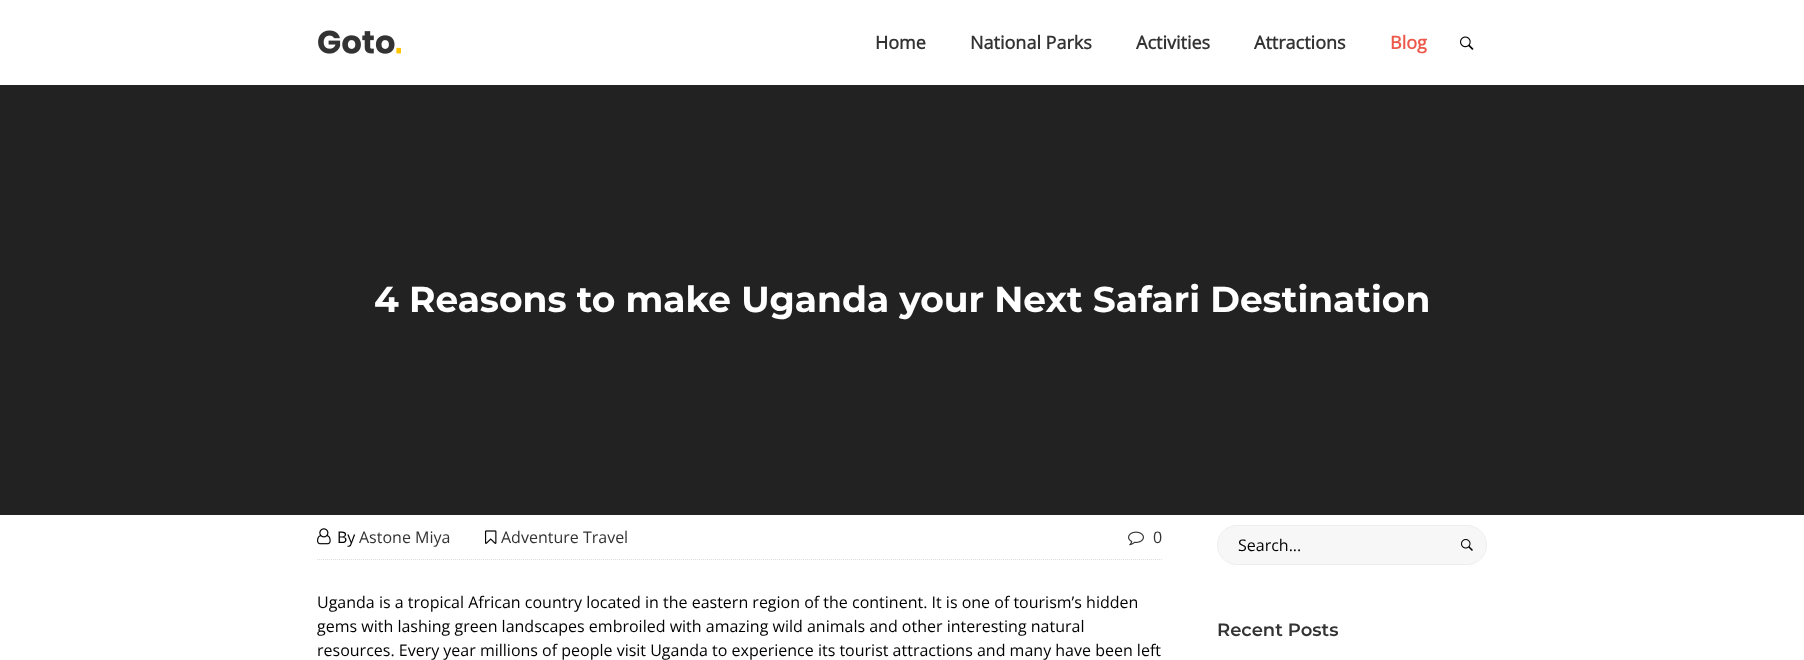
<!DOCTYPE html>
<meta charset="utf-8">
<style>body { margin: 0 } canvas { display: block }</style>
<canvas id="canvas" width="1804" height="660"></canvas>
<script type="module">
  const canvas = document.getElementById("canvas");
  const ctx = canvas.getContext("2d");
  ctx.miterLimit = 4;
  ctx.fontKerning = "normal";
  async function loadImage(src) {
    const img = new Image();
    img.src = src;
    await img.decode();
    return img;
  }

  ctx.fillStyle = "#ffffff";
  ctx.fillRect(0, 0, 1804, 660);
  ctx.drawImage(await loadImage("img1.png"), 318, 30, 83, 24);
  ctx.font = "bold 18px Open Sans";
  ctx.fillStyle = "#333333";
  ctx.fillText("Home", 875, 49);
  ctx.fillText("National Parks", 970, 49);
  ctx.fillText("Activities", 1136, 49);
  ctx.fillText("Attractions", 1254, 49);
  ctx.fillStyle = "#ec5849";
  ctx.fillText("Blog", 1390, 49);
  ctx.drawImage(await loadImage("img2.png"), 1460, 36, 14, 14);
  ctx.fillStyle = "#222222";
  ctx.fillRect(0, 85, 1804, 430);
  ctx.font = "100 36px Montserrat";
  ctx.fillStyle = "#ffffff";
  ctx.fillText("4 Reasons to make Uganda your Next Safari Destination", 374, 312);
  ctx.beginPath();
  ctx.moveTo(317, 559.5);
  ctx.lineTo(1162, 559.5);
  ctx.strokeStyle = "#dddddd";
  ctx.setLineDash([1, 1]);
  ctx.stroke();
  ctx.drawImage(await loadImage("img3.png"), 317, 528, 14, 17);
  ctx.font = "16px Open Sans";
  ctx.fillStyle = "#000000";
  ctx.fillText("By", 337, 543);
  ctx.fillStyle = "#333333";
  ctx.fillText("Astone Miya", 359, 543);
  ctx.drawImage(await loadImage("img4.png"), 485, 530, 12, 14);
  ctx.fillText("Adventure Travel", 501, 543);
  ctx.drawImage(await loadImage("img5.png"), 1128, 531, 16, 15);
  ctx.fillText("0", 1153, 543);
  ctx.fillStyle = "#000000";
  ctx.fillText("Uganda is a tropical African country located in the eastern region of the continent. It is one of tourism’s hidden", 317, 608);
  ctx.fillText("gems with lashing green landscapes embroiled with amazing wild animals and other interesting natural", 317, 632);
  ctx.fillText("resources. Every year millions of people visit Uganda to experience its tourist attractions and many have been left", 317, 656);
  ctx.fillStyle = "#f7f7f7";
  ctx.beginPath();
  ctx.roundRect(1217.5, 525.5, 269, 39, 19.5);
  ctx.fill();
  ctx.strokeStyle = "#eeeeee";
  ctx.setLineDash([]);
  ctx.stroke();
  ctx.fillStyle = "#000000";
  ctx.fillText("Search...", 1238, 551);
  ctx.drawImage(await loadImage("img6.png"), 1461, 539, 12, 12);
  ctx.font = "100 18px 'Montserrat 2'";
  ctx.fillStyle = "#333333";
  ctx.fillText("Recent Posts", 1217, 636);
</script>
